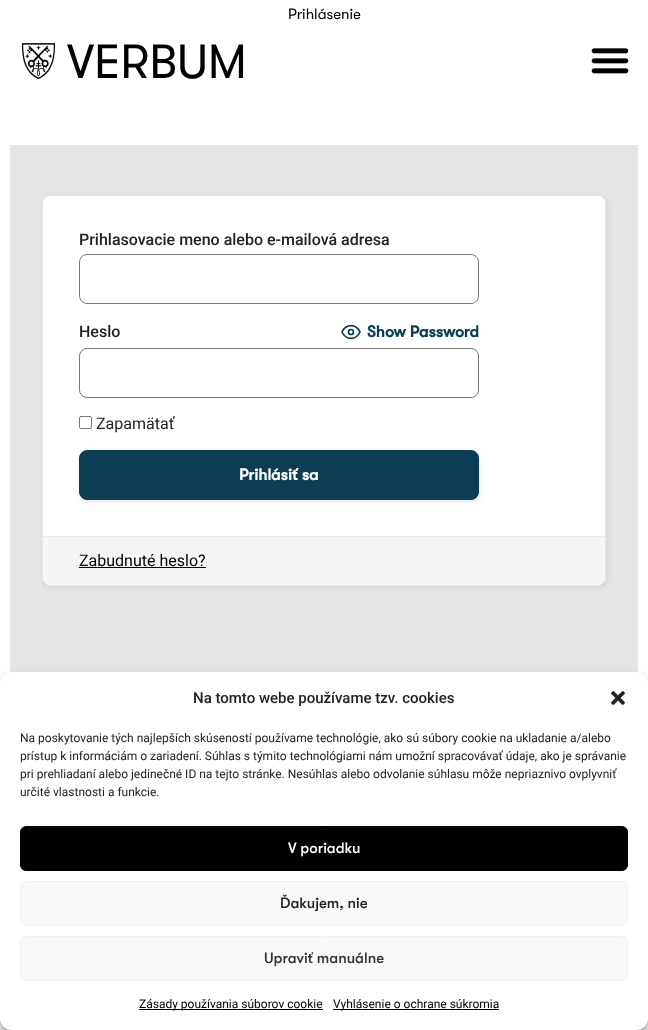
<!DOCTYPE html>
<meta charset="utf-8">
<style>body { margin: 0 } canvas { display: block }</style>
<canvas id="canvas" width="648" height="1030"></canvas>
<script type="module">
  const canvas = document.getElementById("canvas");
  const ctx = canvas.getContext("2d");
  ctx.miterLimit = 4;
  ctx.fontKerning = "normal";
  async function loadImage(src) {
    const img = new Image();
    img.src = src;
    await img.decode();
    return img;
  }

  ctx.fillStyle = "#ffffff";
  ctx.fillRect(0, 0, 648, 1030);
  ctx.font = "15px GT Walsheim";
  ctx.fillStyle = "#000000";
  ctx.fillText("Prihlásenie", 288, 19);
  ctx.drawImage(await loadImage("img1.png"), 22, 43, 33, 37);
  ctx.font = "48px GT Walsheim";
  ctx.fillText("VERBUM", 67, 78);
  ctx.drawImage(await loadImage("img2.png"), 591, 48, 38, 26);
  ctx.fillStyle = "#e5e5e5";
  ctx.fillRect(10, 145, 628, 528);
  ctx.fillStyle = "rgba(0, 0, 0, 0.07)";
  ctx.filter = "blur(3.5px)";
  ctx.beginPath();
  ctx.roundRect(44, 197, 564, 391, 8);
  ctx.fill();
  ctx.filter = "none";
  ctx.fillStyle = "#ffffff";
  ctx.beginPath();
  ctx.roundRect(42.5, 195.5, 563, 390, 7.5);
  ctx.fill();
  ctx.strokeStyle = "#e8e8e8";
  ctx.stroke();
  ctx.font = "500 16px Roboto";
  ctx.fillStyle = "#222222";
  ctx.fillText("Prihlasovacie meno alebo e-mailová adresa", 79, 245);
  ctx.beginPath();
  ctx.roundRect(79.5, 254.5, 399, 49, 7.5);
  ctx.strokeStyle = "#777777";
  ctx.stroke();
  ctx.fillText("Heslo", 79, 337);
  ctx.beginPath();
  ctx.moveTo(342, 332);
  ctx.bezierCurveTo(346, 323.5, 356, 323.5, 360, 332);
  ctx.bezierCurveTo(356, 340.5, 346, 340.5, 342, 332);
  ctx.closePath();
  ctx.strokeStyle = "#0c3d54";
  ctx.lineWidth = 1.7;
  ctx.lineCap = "round";
  ctx.lineJoin = "round";
  ctx.stroke();
  ctx.beginPath();
  ctx.arc(351, 332, 2.5, 0, Math.PI * 2);
  ctx.stroke();
  ctx.font = "bold 16px GT Walsheim";
  ctx.fillStyle = "#0c3d54";
  ctx.fillText("Show Password", 367, 337);
  ctx.beginPath();
  ctx.roundRect(79.5, 348.5, 399, 49, 7.5);
  ctx.strokeStyle = "#777777";
  ctx.lineWidth = 1;
  ctx.lineJoin = "miter";
  ctx.stroke();
  ctx.beginPath();
  ctx.roundRect(79.5, 416.5, 12, 12, 1.5);
  ctx.strokeStyle = "#767676";
  ctx.stroke();
  ctx.font = "16px Roboto";
  ctx.fillStyle = "#222222";
  ctx.fillText("Zapamätať", 96, 429);
  ctx.fillStyle = "rgba(0, 0, 0, 0.1)";
  ctx.filter = "blur(2px)";
  ctx.beginPath();
  ctx.roundRect(80, 452, 400, 50, 8);
  ctx.fill();
  ctx.filter = "none";
  ctx.fillStyle = "#0c3d54";
  ctx.beginPath();
  ctx.roundRect(79.5, 450.5, 399, 49, 7.5);
  ctx.fill();
  ctx.strokeStyle = "#0c3d54";
  ctx.stroke();
  ctx.font = "bold 16px GT Walsheim";
  ctx.fillStyle = "#ffffff";
  ctx.fillText("Prihlásiť sa", 239, 480);
  ctx.fillStyle = "rgba(0, 0, 0, 0.04)";
  ctx.fillRect(43, 537, 562, 48);
  ctx.fillStyle = "#e8e8e8";
  ctx.fillRect(43, 536, 562, 1);
  ctx.font = "16px Roboto";
  ctx.fillStyle = "#000000";
  ctx.fillText("Zabudnuté heslo?", 79, 566);
  ctx.fillRect(79, 567, 127, 1);
  ctx.drawImage(await loadImage("img3.png"), 10, 1029, 628, 1);
  ctx.fillStyle = "rgba(0, 0, 0, 0.23)";
  ctx.filter = "blur(3px)";
  ctx.beginPath();
  ctx.roundRect(0, 678, 648, 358, 12);
  ctx.fill();
  ctx.filter = "none";
  ctx.fillStyle = "rgba(0, 0, 0, 0.19)";
  ctx.filter = "blur(10px)";
  ctx.beginPath();
  ctx.roundRect(0, 682, 648, 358, 12);
  ctx.fill();
  ctx.filter = "none";
  ctx.fillStyle = "#ffffff";
  ctx.beginPath();
  ctx.roundRect(0, 672, 648, 358, 12);
  ctx.fill();
  ctx.font = "500 15px Roboto";
  ctx.fillStyle = "#222222";
  ctx.fillText("Na tomto webe používame tzv. cookies", 193, 703);
  ctx.drawImage(await loadImage("img4.png"), 611, 691, 14, 14);
  ctx.font = "12px Roboto";
  ctx.fillText("Na poskytovanie tých najlepších skúseností používame technológie, ako sú súbory cookie na ukladanie a/alebo", 20, 742);
  ctx.fillText("prístup k informáciám o zariadení. Súhlas s týmito technológiami nám umožní spracovávať údaje, ako je správanie", 20, 760);
  ctx.fillText("pri prehliadaní alebo jedinečné ID na tejto stránke. Nesúhlas alebo odvolanie súhlasu môže nepriaznivo ovplyvniť", 20, 778);
  ctx.fillText("určité vlastnosti a funkcie.", 20, 796);
  ctx.fillStyle = "#000000";
  ctx.beginPath();
  ctx.roundRect(20.5, 826.5, 607, 44, 5.5);
  ctx.fill();
  ctx.strokeStyle = "#000000";
  ctx.stroke();
  ctx.font = "500 15px GT Walsheim";
  ctx.fillStyle = "#ffffff";
  ctx.fillText("V poriadku", 288, 853);
  ctx.fillStyle = "#f9f9f9";
  ctx.beginPath();
  ctx.roundRect(20.5, 881.5, 607, 44, 5.5);
  ctx.fill();
  ctx.strokeStyle = "#f2f2f2";
  ctx.stroke();
  ctx.fillStyle = "#222222";
  ctx.fillText("Ďakujem, nie", 280, 908);
  ctx.fillStyle = "#f9f9f9";
  ctx.beginPath();
  ctx.roundRect(20.5, 936.5, 607, 44, 5.5);
  ctx.fill();
  ctx.stroke();
  ctx.fillStyle = "#333333";
  ctx.fillText("Upraviť manuálne", 264, 963);
  ctx.fillStyle = "#000000";
  ctx.fillRect(139, 1009, 184, 1);
  ctx.font = "12px Roboto";
  ctx.fillText("Zásady používania súborov cookie", 139, 1008);
  ctx.fillRect(333, 1009, 166, 1);
  ctx.fillText("Vyhlásenie o ochrane súkromia", 333, 1008);
</script>
